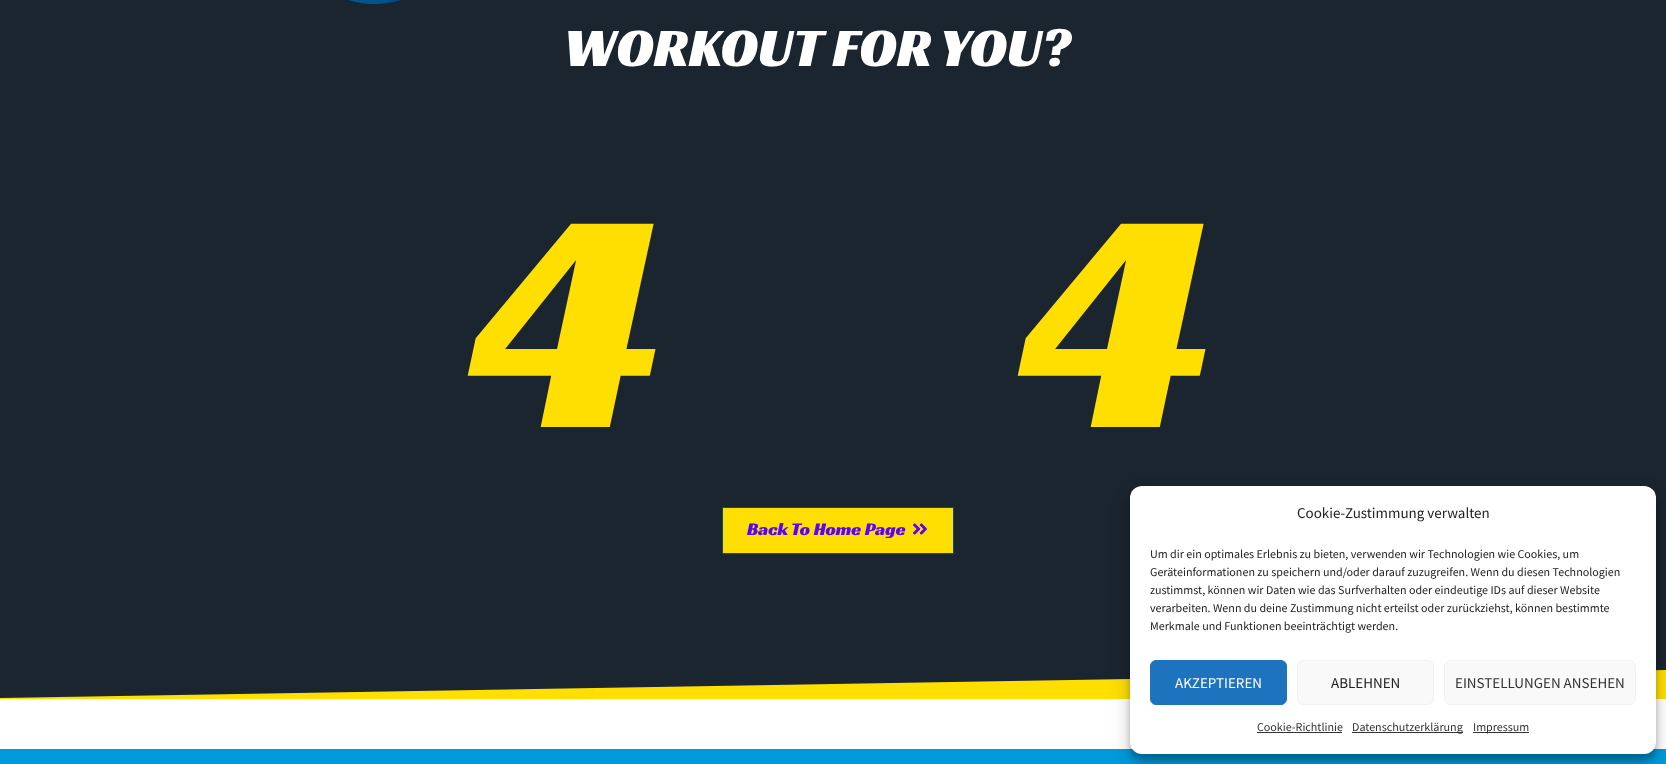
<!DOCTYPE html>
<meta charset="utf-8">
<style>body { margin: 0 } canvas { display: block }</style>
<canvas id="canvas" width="1666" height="764"></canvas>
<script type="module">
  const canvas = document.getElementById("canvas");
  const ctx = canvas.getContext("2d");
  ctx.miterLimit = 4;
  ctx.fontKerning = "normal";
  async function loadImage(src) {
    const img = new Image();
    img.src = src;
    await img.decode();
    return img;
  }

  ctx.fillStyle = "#ffffff";
  ctx.fillRect(0, 0, 1666, 764);
  ctx.fillStyle = "#1b252f";
  ctx.fillRect(0, 0, 1666, 698);
  ctx.drawImage(await loadImage("img1.png"), 347, 0, 55, 5);
  ctx.font = "320px Racing Sans One";
  ctx.fillStyle = "#ffde01";
  ctx.fillText("4", 468, 427);
  ctx.font = "55px Racing Sans One";
  ctx.fillStyle = "#ffffff";
  ctx.fillText("WORKOUT FOR YOU?", 564, 66);
  ctx.fillStyle = "#ffde01";
  ctx.beginPath();
  ctx.rect(722.5, 507.5, 231, 46);
  ctx.fill();
  ctx.strokeStyle = "#004e8f";
  ctx.stroke();
  ctx.font = "18px Racing Sans One";
  ctx.fillStyle = "#5804fa";
  ctx.fillText("Back To Home Page", 747, 535);
  ctx.drawImage(await loadImage("img2.png"), 913, 523, 14, 12);
  ctx.font = "320px Racing Sans One";
  ctx.fillStyle = "#ffde01";
  ctx.fillText("4", 1018, 427);
  ctx.save();
  ctx.beginPath();
  ctx.rect(0, 670, 1666, 29);
  ctx.clip();
  ctx.beginPath();
  ctx.moveTo(-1, 698);
  ctx.lineTo(-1, 700);
  ctx.lineTo(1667, 700);
  ctx.lineTo(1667, 670);
  ctx.closePath();
  ctx.fill();
  ctx.restore();
  ctx.fillStyle = "#009ada";
  ctx.fillRect(0, 749, 1666, 15);
  ctx.fillStyle = "rgba(0, 0, 0, 0.23)";
  ctx.filter = "blur(3px)";
  ctx.beginPath();
  ctx.roundRect(1130, 492, 526, 268, 12);
  ctx.fill();
  ctx.filter = "none";
  ctx.fillStyle = "rgba(0, 0, 0, 0.19)";
  ctx.filter = "blur(10px)";
  ctx.beginPath();
  ctx.roundRect(1130, 496, 526, 268, 12);
  ctx.fill();
  ctx.filter = "none";
  ctx.fillStyle = "#ffffff";
  ctx.beginPath();
  ctx.roundRect(1130, 486, 526, 268, 12);
  ctx.fill();
  ctx.font = "15px Source Sans Pro";
  ctx.fillStyle = "#222222";
  ctx.fillText("Cookie-Zustimmung verwalten", 1297, 518);
  ctx.font = "12px Source Sans Pro";
  ctx.fillText("Um dir ein optimales Erlebnis zu bieten, verwenden wir Technologien wie Cookies, um", 1150, 558);
  ctx.fillText("Geräteinformationen zu speichern und/oder darauf zuzugreifen. Wenn du diesen Technologien", 1150, 576);
  ctx.fillText("zustimmst, können wir Daten wie das Surfverhalten oder eindeutige IDs auf dieser Website", 1150, 594);
  ctx.fillText("verarbeiten. Wenn du deine Zustimmung nicht erteilst oder zurückziehst, können bestimmte", 1150, 612);
  ctx.fillText("Merkmale und Funktionen beeinträchtigt werden.", 1150, 630);
  ctx.fillStyle = "#1e73be";
  ctx.beginPath();
  ctx.roundRect(1150.5, 660.5, 136, 44, 5.5);
  ctx.fill();
  ctx.strokeStyle = "#1e73be";
  ctx.stroke();
  ctx.font = "15px Source Sans Pro";
  ctx.fillStyle = "#ffffff";
  ctx.fillText("AKZEPTIEREN", 1175, 688);
  ctx.fillStyle = "#f9f9f9";
  ctx.beginPath();
  ctx.roundRect(1297.5, 660.5, 136, 44, 5.5);
  ctx.fill();
  ctx.strokeStyle = "#f2f2f2";
  ctx.stroke();
  ctx.fillStyle = "#222222";
  ctx.fillText("ABLEHNEN", 1331, 688);
  ctx.fillStyle = "#f9f9f9";
  ctx.beginPath();
  ctx.roundRect(1444.5, 660.5, 191, 44, 5.5);
  ctx.fill();
  ctx.stroke();
  ctx.fillStyle = "#333333";
  ctx.fillText("EINSTELLUNGEN ANSEHEN", 1455, 688);
  ctx.font = "12px Source Sans Pro";
  ctx.fillText("Cookie-Richtlinie", 1257, 731);
  ctx.fillRect(1257, 732, 85, 1);
  ctx.fillRect(1352, 732, 111, 1);
  ctx.fillText("Datenschutzerklärung", 1352, 731);
  ctx.fillRect(1473, 732, 56, 1);
  ctx.fillText("Impressum", 1473, 731);
</script>
